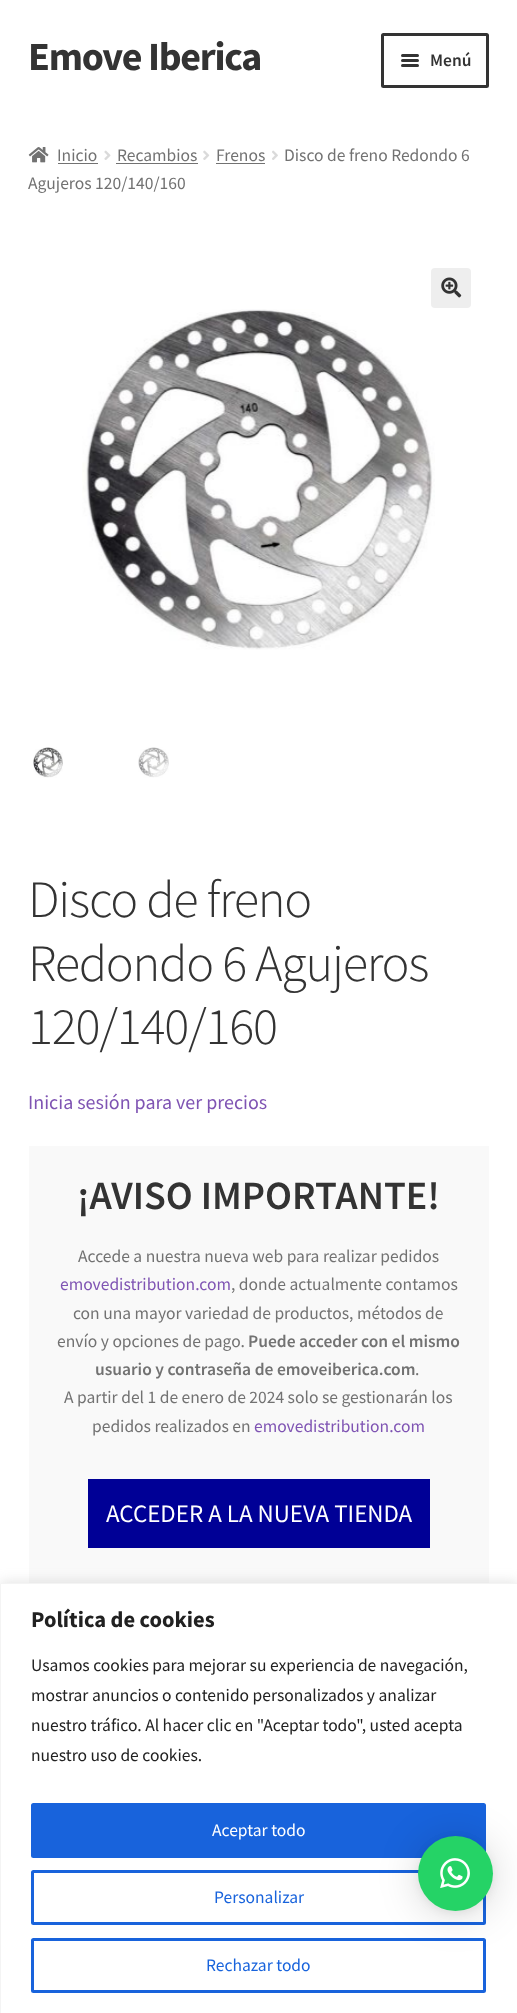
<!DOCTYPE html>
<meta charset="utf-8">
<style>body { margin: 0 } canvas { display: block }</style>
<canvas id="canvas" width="517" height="2013"></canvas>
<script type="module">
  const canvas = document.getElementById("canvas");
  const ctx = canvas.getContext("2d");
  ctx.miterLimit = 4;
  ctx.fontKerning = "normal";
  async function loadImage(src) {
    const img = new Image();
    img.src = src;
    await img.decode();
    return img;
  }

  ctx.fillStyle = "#ffffff";
  ctx.fillRect(0, 0, 517, 2013);
  ctx.letterSpacing = "-1.25px";
  ctx.font = "bold 40px Source Sans Pro";
  ctx.fillStyle = "#333333";
  ctx.fillText("Emove Iberica", 28, 70);
  ctx.beginPath();
  ctx.roundRect(382.5, 34.5, 105, 52, 1);
  ctx.strokeStyle = "#333333";
  ctx.lineWidth = 3;
  ctx.stroke();
  ctx.beginPath();
  ctx.roundRect(401, 54, 18, 3, 1.5);
  ctx.fill();
  ctx.beginPath();
  ctx.roundRect(401, 59, 18, 3, 1.5);
  ctx.fill();
  ctx.letterSpacing = "0px";
  ctx.font = "600 17.5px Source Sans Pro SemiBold";
  ctx.fillText("Menú", 430, 66);
  ctx.beginPath();
  ctx.roundRect(401, 64, 18, 3, 1.5);
  ctx.fill();
  ctx.drawImage(await loadImage("img1.png"), 28, 147, 21, 16);
  ctx.font = "17.5px Source Sans Pro";
  ctx.fillStyle = "#727272";
  ctx.fillText("Inicio", 57, 161);
  ctx.fillRect(58, 163, 40, 1);
  ctx.drawImage(await loadImage("img2.png"), 104, 150, 7, 10);
  ctx.fillText("Recambios", 117, 161);
  ctx.fillRect(116, 163, 82, 1);
  ctx.drawImage(await loadImage("img3.png"), 203, 150, 7, 10);
  ctx.fillText("Frenos", 216, 161);
  ctx.fillRect(216, 163, 49, 1);
  ctx.drawImage(await loadImage("img4.png"), 272, 150, 6, 10);
  ctx.fillText("Disco de freno Redondo 6", 284, 161);
  ctx.fillText("Agujeros 120/140/160", 28, 189);
  ctx.fillStyle = "#eeeeee";
  ctx.beginPath();
  ctx.roundRect(431, 268, 40, 40, 4);
  ctx.fill();
  ctx.drawImage(await loadImage("img5.png"), 441, 277, 21, 21);
  ctx.drawImage(await loadImage("img6.png"), 82, 309, 353, 341);
  ctx.drawImage(await loadImage("img7.png"), 33, 747, 30, 31);
  ctx.drawImage(await loadImage("img8.png"), 138, 747, 31, 31);
  ctx.letterSpacing = "-1.25px";
  ctx.font = "300 52.25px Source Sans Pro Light";
  ctx.fillStyle = "#333333";
  ctx.fillText("Disco de freno", 28, 917);
  ctx.fillText("Redondo 6 Agujeros", 28, 981);
  ctx.fillText("120/140/160", 28, 1044);
  ctx.letterSpacing = "0px";
  ctx.font = "20px Source Sans Pro";
  ctx.fillStyle = "#7f54b3";
  ctx.fillText("Inicia sesión para ver precios", 28, 1109);
  ctx.fillStyle = "#f9f9f9";
  ctx.fillRect(29, 1146, 460, 437);
  ctx.font = "600 40px Source Sans Pro SemiBold";
  ctx.fillStyle = "#333333";
  ctx.fillText("¡AVISO IMPORTANTE!", 77, 1209);
  ctx.font = "17.5px Source Sans Pro";
  ctx.fillStyle = "#727272";
  ctx.fillText("Accede a nuestra nueva web para realizar pedidos", 78, 1262);
  ctx.fillStyle = "#7f54b3";
  ctx.fillText("emovedistribution.com", 60, 1290);
  ctx.fillStyle = "#727272";
  ctx.fillText(", donde actualmente contamos", 231, 1290);
  ctx.fillText("con una mayor variedad de productos, métodos de", 73, 1319);
  ctx.fillText("envío y opciones de pago.", 57, 1347);
  ctx.font = "600 17.5px Source Sans Pro SemiBold";
  ctx.fillText("Puede acceder con el mismo", 248, 1347);
  ctx.fillText("usuario y contraseña de emoveiberica.com", 95, 1375);
  ctx.font = "17.5px Source Sans Pro";
  ctx.fillText(".", 415, 1375);
  ctx.fillText("A partir del 1 de enero de 2024 solo se gestionarán los", 64, 1403);
  ctx.fillText("pedidos realizados en", 92, 1432);
  ctx.fillStyle = "#7f54b3";
  ctx.fillText("emovedistribution.com", 254, 1432);
  ctx.fillStyle = "#000096";
  ctx.fillRect(88, 1479, 342, 69);
  ctx.font = "25px Source Sans Pro";
  ctx.fillStyle = "#ffffff";
  ctx.fillText("ACCEDER A LA NUEVA TIENDA", 106, 1522);
  ctx.fillStyle = "rgba(172, 171, 171, 0.3)";
  ctx.filter = "blur(6px)";
  ctx.beginPath();
  ctx.rect(0, 1581, 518, 432);
  ctx.fill();
  ctx.filter = "none";
  ctx.fillStyle = "#ffffff";
  ctx.beginPath();
  ctx.rect(0.5, 1583.5, 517, 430);
  ctx.fill();
  ctx.strokeStyle = "#f4f4f4";
  ctx.lineWidth = 1;
  ctx.stroke();
  ctx.font = "bold 22.5px Source Sans Pro";
  ctx.fillStyle = "#212121";
  ctx.fillText("Política de cookies", 31, 1627);
  ctx.font = "17.5px Source Sans Pro";
  ctx.fillText("Usamos cookies para mejorar su experiencia de navegación,", 31, 1671);
  ctx.fillText("mostrar anuncios o contenido personalizados y analizar", 31, 1701);
  ctx.fillText("nuestro tráfico. Al hacer clic en \"Aceptar todo\", usted acepta", 31, 1731);
  ctx.fillText("nuestro uso de cookies.", 31, 1761);
  ctx.fillStyle = "#1863dc";
  ctx.beginPath();
  ctx.roundRect(32.5, 1804.5, 452, 52, 1);
  ctx.fill();
  ctx.strokeStyle = "#1863dc";
  ctx.lineWidth = 3;
  ctx.stroke();
  ctx.fillStyle = "#ffffff";
  ctx.fillText("Aceptar todo", 212, 1836);
  ctx.beginPath();
  ctx.roundRect(32.5, 1871.5, 452, 52, 1);
  ctx.stroke();
  ctx.fillStyle = "#1863dc";
  ctx.fillText("Personalizar", 214, 1903);
  ctx.beginPath();
  ctx.roundRect(32.5, 1939.5, 452, 52, 1);
  ctx.stroke();
  ctx.fillText("Rechazar todo", 206, 1971);
  ctx.fillStyle = "rgba(0, 0, 0, 0.16)";
  ctx.filter = "blur(20px)";
  ctx.beginPath();
  ctx.roundRect(418, 1839, 75, 75, 37.5);
  ctx.fill();
  ctx.filter = "none";
  ctx.fillStyle = "rgba(0, 0, 0, 0.06)";
  ctx.filter = "blur(4px)";
  ctx.beginPath();
  ctx.roundRect(418, 1838, 75, 75, 37.5);
  ctx.fill();
  ctx.filter = "none";
  ctx.fillStyle = "#25d366";
  ctx.beginPath();
  ctx.arc(455.5, 1873.5, 37.5, 0, Math.PI * 2);
  ctx.fill();
  ctx.drawImage(await loadImage("img9.png"), 440, 1858, 30, 31);
</script>
